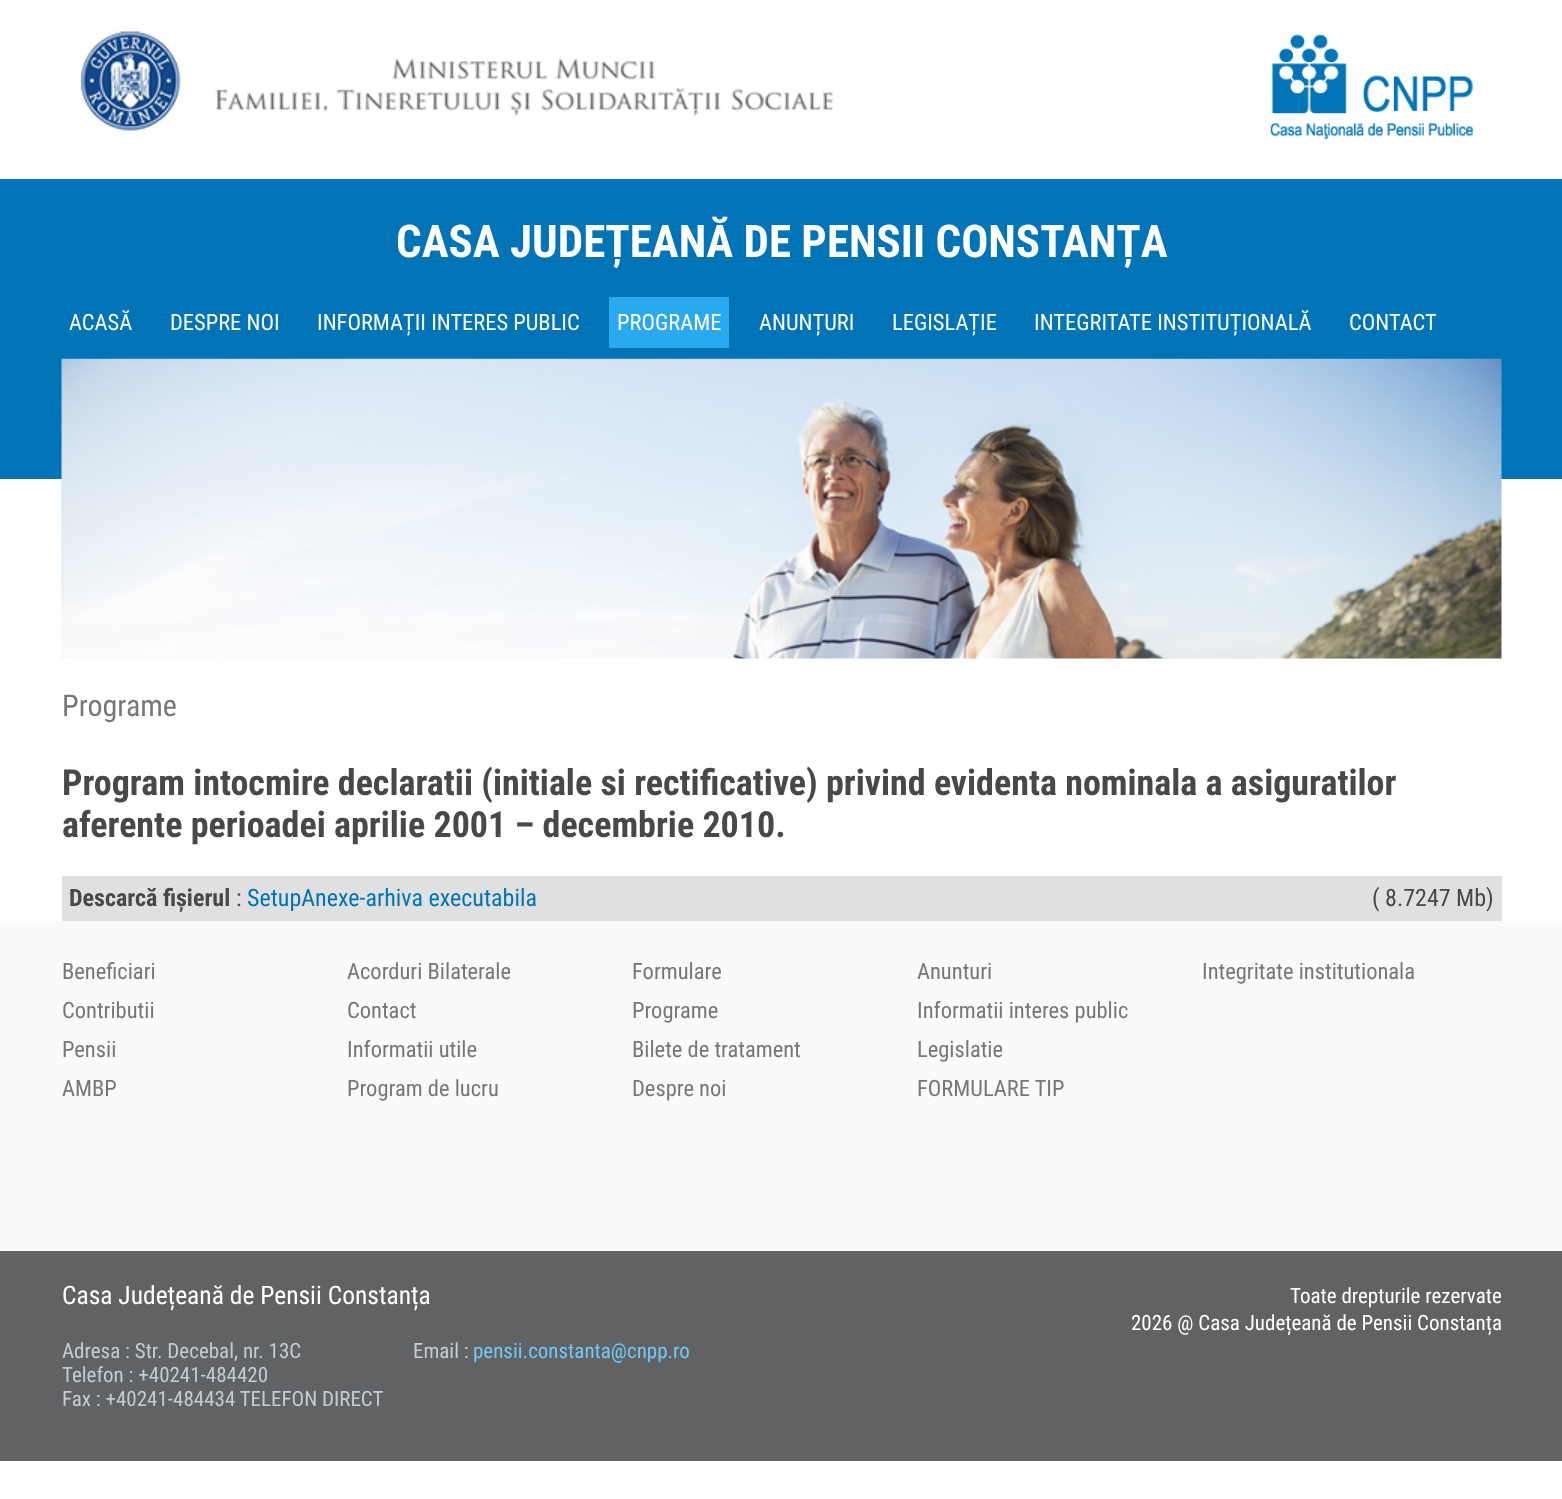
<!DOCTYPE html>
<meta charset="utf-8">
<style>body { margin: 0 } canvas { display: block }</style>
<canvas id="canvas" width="1562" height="1499"></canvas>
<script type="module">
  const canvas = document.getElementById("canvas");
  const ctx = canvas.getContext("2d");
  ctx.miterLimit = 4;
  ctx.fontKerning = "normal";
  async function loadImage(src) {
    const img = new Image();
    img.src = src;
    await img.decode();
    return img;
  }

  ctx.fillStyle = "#ffffff";
  ctx.fillRect(0, 0, 1562, 1499);
  ctx.drawImage(await loadImage("img1.png"), 79, 30, 754, 103);
  ctx.drawImage(await loadImage("img2.png"), 1270, 34, 204, 105);
  ctx.fillStyle = "#0074b6";
  ctx.fillRect(0, 179, 1562, 300);
  ctx.font = "bold 45px Roboto Condensed";
  ctx.fillStyle = "#ffffff";
  ctx.fillText("CASA JUDEȚEANĂ DE PENSII CONSTANȚA", 396, 257);
  ctx.font = "22.5px Roboto Condensed";
  ctx.fillText("ACASĂ", 69, 330);
  ctx.fillText("DESPRE NOI", 170, 330);
  ctx.fillText("INFORMAȚII INTERES PUBLIC", 317, 330);
  ctx.fillStyle = "#2ba9f0";
  ctx.fillRect(609, 297, 120, 51);
  ctx.fillStyle = "#ffffff";
  ctx.fillText("PROGRAME", 617, 330);
  ctx.fillText("ANUNȚURI", 759, 330);
  ctx.fillText("LEGISLAȚIE", 892, 330);
  ctx.fillText("INTEGRITATE INSTITUȚIONALĂ", 1034, 330);
  ctx.fillText("CONTACT", 1349, 330);
  ctx.drawImage(await loadImage("img3.png"), 61, 358, 1441, 301);
  ctx.font = "30px Roboto Condensed";
  ctx.fillStyle = "#777777";
  ctx.fillText("Programe", 62, 716);
  ctx.font = "bold 36px Roboto Condensed";
  ctx.fillStyle = "#484848";
  ctx.fillText("Program intocmire declaratii (initiale si rectificative) privind evidenta nominala a asiguratilor", 62, 795);
  ctx.fillText("aferente perioadei aprilie 2001 – decembrie 2010.", 62, 837);
  ctx.fillStyle = "#e0e0e0";
  ctx.fillRect(62, 876, 1440, 45);
  ctx.font = "bold 24px Roboto Condensed";
  ctx.fillStyle = "#484848";
  ctx.fillText("Descarcă fișierul", 69, 906);
  ctx.font = "24px Roboto Condensed";
  ctx.fillText(":", 236, 906);
  ctx.fillStyle = "#0074b6";
  ctx.fillText("SetupAnexe-arhiva executabila", 247, 906);
  ctx.fillStyle = "#484848";
  ctx.fillText("( 8.7247 Mb)", 1372, 906);
  ctx.fillStyle = "#fafafa";
  ctx.fillRect(0, 921, 1562, 330);
  ctx.font = "22.5px Roboto Condensed";
  ctx.fillStyle = "#777777";
  ctx.fillText("Beneficiari", 62, 979);
  ctx.fillText("Contributii", 62, 1018);
  ctx.fillText("Pensii", 62, 1057);
  ctx.fillText("AMBP", 62, 1096);
  ctx.fillText("Acorduri Bilaterale", 347, 979);
  ctx.fillText("Contact", 347, 1018);
  ctx.fillText("Informatii utile", 347, 1057);
  ctx.fillText("Program de lucru", 347, 1096);
  ctx.fillText("Formulare", 632, 979);
  ctx.fillText("Programe", 632, 1018);
  ctx.fillText("Bilete de tratament", 632, 1057);
  ctx.fillText("Despre noi", 632, 1096);
  ctx.fillText("Anunturi", 917, 979);
  ctx.fillText("Informatii interes public", 917, 1018);
  ctx.fillText("Legislatie", 917, 1057);
  ctx.fillText("FORMULARE TIP", 917, 1096);
  ctx.fillText("Integritate institutionala", 1202, 979);
  ctx.fillStyle = "#606264";
  ctx.fillRect(0, 1251, 1562, 210);
  ctx.font = "25.5px Roboto Condensed";
  ctx.fillStyle = "#ffffff";
  ctx.fillText("Casa Județeană de Pensii Constanța", 62, 1304);
  ctx.font = "21px Roboto Condensed";
  ctx.fillStyle = "#c6cbcf";
  ctx.fillText("Adresa : Str. Decebal, nr. 13C", 62, 1358);
  ctx.fillText("Telefon : +40241-484420", 62, 1382);
  ctx.fillText("Fax : +40241-484434 TELEFON DIRECT", 62, 1406);
  ctx.fillText("Email :", 413, 1358);
  ctx.fillStyle = "#73c8f7";
  ctx.fillText("pensii.constanta@cnpp.ro", 473, 1358);
  ctx.fillStyle = "#ffffff";
  ctx.fillText("Toate drepturile rezervate", 1290, 1303);
  ctx.fillText("2026 @ Casa Județeană de Pensii Constanța", 1131, 1330);
</script>
